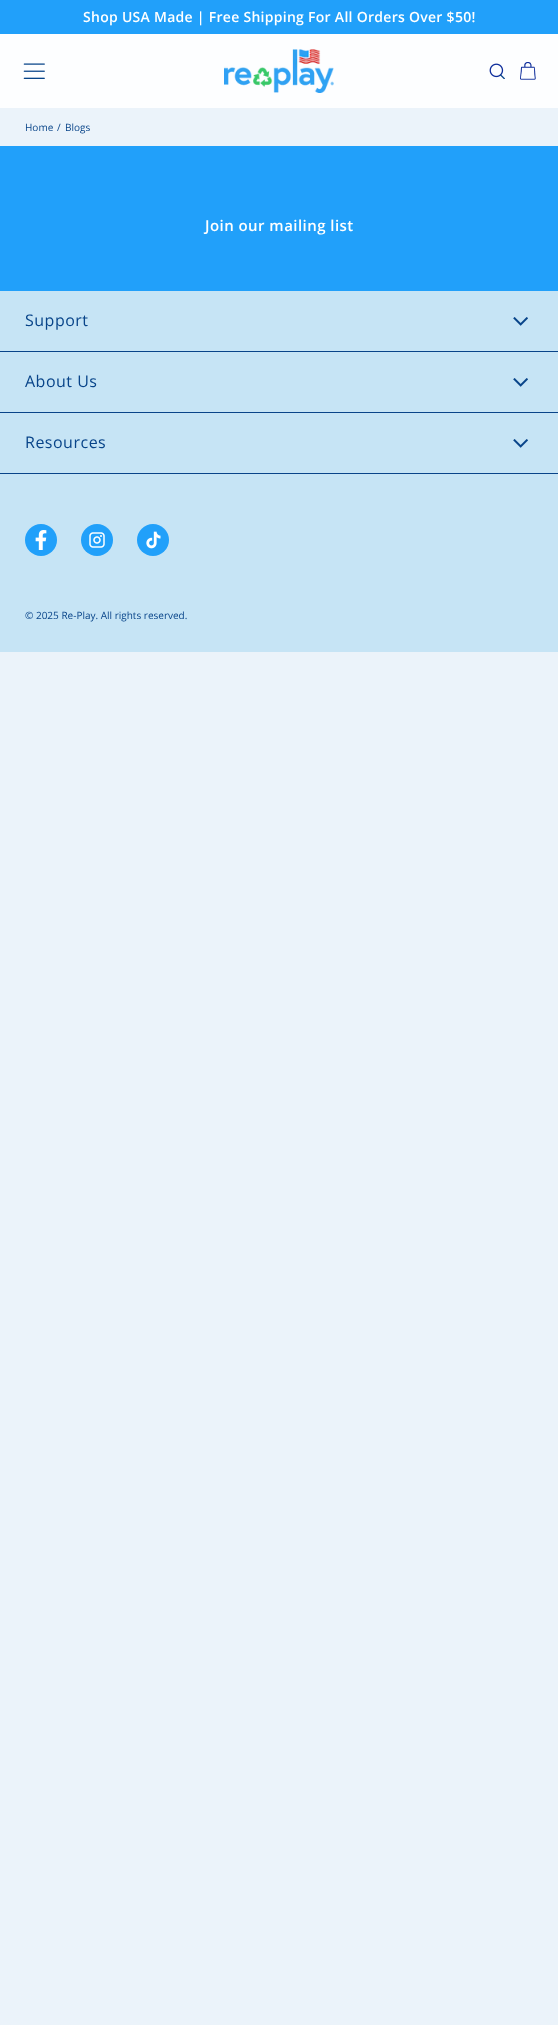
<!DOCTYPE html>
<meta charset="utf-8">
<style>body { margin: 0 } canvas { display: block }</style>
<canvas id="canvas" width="558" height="2025"></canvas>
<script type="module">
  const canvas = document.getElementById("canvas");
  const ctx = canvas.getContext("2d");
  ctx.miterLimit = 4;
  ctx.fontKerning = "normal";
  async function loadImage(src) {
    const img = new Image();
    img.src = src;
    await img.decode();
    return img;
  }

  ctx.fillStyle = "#ebf3fa";
  ctx.fillRect(0, 0, 558, 2025);
  ctx.fillStyle = "#21a0fa";
  ctx.fillRect(0, 0, 558, 34);
  ctx.letterSpacing = "0.28px";
  ctx.font = "600 14px Open Sans";
  ctx.fillStyle = "#ffffff";
  ctx.fillText("Shop USA Made | Free Shipping For All Orders Over $50!", 83, 22);
  ctx.fillStyle = "#fdfeff";
  ctx.fillRect(0, 34, 558, 74);
  ctx.drawImage(await loadImage("img1.png"), 23, 63, 22, 16);
  ctx.drawImage(await loadImage("img2.png"), 224, 49, 110, 44);
  ctx.drawImage(await loadImage("img3.png"), 489, 63, 16, 16);
  ctx.drawImage(await loadImage("img4.png"), 520, 62, 16, 18);
  ctx.letterSpacing = "0px";
  ctx.font = "10px Open Sans";
  ctx.fillStyle = "#084489";
  ctx.fillText("Home", 25, 131);
  ctx.fillText("/", 57, 131);
  ctx.fillText("Blogs", 65, 131);
  ctx.fillStyle = "#21a0fa";
  ctx.fillRect(0, 146, 558, 145);
  ctx.letterSpacing = "0.45px";
  ctx.font = "600 15px Open Sans";
  ctx.fillStyle = "#ffffff";
  ctx.fillText("Join our mailing list", 205, 231);
  ctx.fillStyle = "#c6e4f5";
  ctx.fillRect(0, 291, 558, 361);
  ctx.fillStyle = "#084489";
  ctx.fillRect(0, 351, 558, 1);
  ctx.letterSpacing = "0.5px";
  ctx.font = "16px Open Sans";
  ctx.fillText("Support", 25, 326);
  ctx.drawImage(await loadImage("img5.png"), 513, 317, 15, 9);
  ctx.fillRect(0, 412, 558, 1);
  ctx.fillText("About Us", 25, 387);
  ctx.drawImage(await loadImage("img5.png"), 513, 378, 15, 9);
  ctx.fillRect(0, 473, 558, 1);
  ctx.fillText("Resources", 25, 448);
  ctx.drawImage(await loadImage("img5.png"), 513, 439, 15, 9);
  ctx.fillStyle = "#21a0fa";
  ctx.beginPath();
  ctx.arc(41, 540, 16, 0, Math.PI * 2);
  ctx.fill();
  ctx.drawImage(await loadImage("img6.png"), 35, 530, 12, 20);
  ctx.beginPath();
  ctx.arc(97, 540, 16, 0, Math.PI * 2);
  ctx.fill();
  ctx.drawImage(await loadImage("img7.png"), 89, 532, 16, 16);
  ctx.beginPath();
  ctx.arc(153, 540, 16, 0, Math.PI * 2);
  ctx.fill();
  ctx.drawImage(await loadImage("img8.png"), 146, 531, 15, 18);
  ctx.letterSpacing = "0px";
  ctx.font = "10px Open Sans";
  ctx.fillStyle = "#084489";
  ctx.fillText("© 2025 Re-Play. All rights reserved.", 25, 619);
</script>
